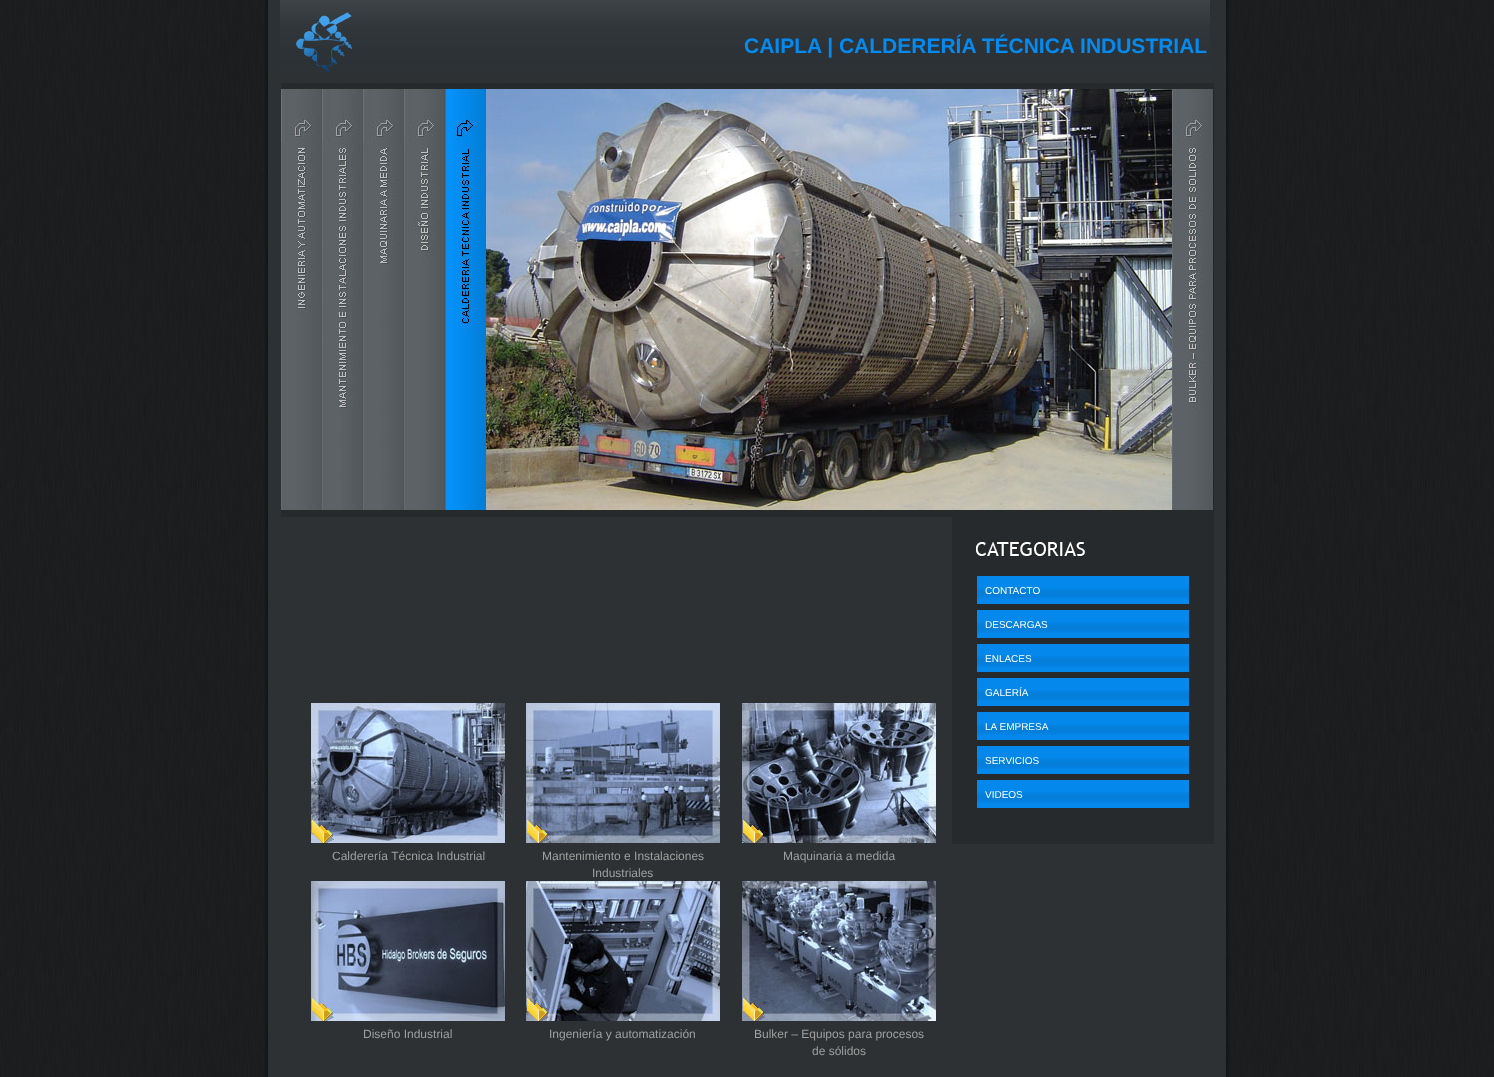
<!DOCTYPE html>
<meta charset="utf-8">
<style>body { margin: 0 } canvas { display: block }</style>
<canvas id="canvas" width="1494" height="1077"></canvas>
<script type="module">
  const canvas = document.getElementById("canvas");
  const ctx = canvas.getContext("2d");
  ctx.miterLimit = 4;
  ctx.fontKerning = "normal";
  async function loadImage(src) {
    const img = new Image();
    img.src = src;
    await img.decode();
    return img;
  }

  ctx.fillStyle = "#ffffff";
  ctx.fillRect(0, 0, 1494, 1077);
  ctx.drawImage(await loadImage("img1.png"), 0, 0, 1494, 1077);
  ctx.fillStyle = "#2d3133";
  ctx.fillRect(268, 0, 958, 1077);
  ctx.drawImage(await loadImage("img2.png"), 257, 0, 11, 1077);
  ctx.drawImage(await loadImage("img3.png"), 1226, 0, 11, 1077);
  ctx.drawImage(await loadImage("img4.png"), 280, 0, 930, 72);
  ctx.font = "bold 21px Liberation Sans";
  ctx.fillStyle = "#058aef";
  ctx.fillText("CAIPLA | CALDERERÍA TÉCNICA INDUSTRIAL", 744, 53);
  ctx.drawImage(await loadImage("img5.png"), 281, 83, 933, 434);
  ctx.drawImage(await loadImage("img6.png"), 281, 89, 41, 421);
  ctx.drawImage(await loadImage("img7.png"), 322, 89, 41, 421);
  ctx.drawImage(await loadImage("img8.png"), 363, 89, 41, 421);
  ctx.drawImage(await loadImage("img9.png"), 404, 89, 41, 421);
  ctx.drawImage(await loadImage("img10.png"), 445, 89, 41, 421);
  ctx.drawImage(await loadImage("img11.png"), 486, 89, 686, 421);
  ctx.drawImage(await loadImage("img12.png"), 1172, 89, 41, 421);
  ctx.fillStyle = "#272a2c";
  ctx.fillRect(952, 517, 262, 327);
  ctx.drawImage(await loadImage("img13.png"), 976, 542, 109, 15);
  ctx.fillStyle = "#0488eb";
  ctx.fillRect(977, 576, 212, 28);
  ctx.drawImage(await loadImage("img14.png"), 977, 588, 212, 11);
  ctx.font = "10px Liberation Sans";
  ctx.fillStyle = "#ffffff";
  ctx.fillText("CONTACTO", 985, 594);
  ctx.fillStyle = "#0488eb";
  ctx.fillRect(977, 610, 212, 28);
  ctx.drawImage(await loadImage("img14.png"), 977, 622, 212, 11);
  ctx.fillStyle = "#ffffff";
  ctx.fillText("DESCARGAS", 985, 628);
  ctx.fillStyle = "#0488eb";
  ctx.fillRect(977, 644, 212, 28);
  ctx.drawImage(await loadImage("img14.png"), 977, 656, 212, 11);
  ctx.fillStyle = "#ffffff";
  ctx.fillText("ENLACES", 985, 662);
  ctx.fillStyle = "#0488eb";
  ctx.fillRect(977, 678, 212, 28);
  ctx.drawImage(await loadImage("img14.png"), 977, 690, 212, 11);
  ctx.fillStyle = "#ffffff";
  ctx.fillText("GALERÍA", 985, 696);
  ctx.fillStyle = "#0488eb";
  ctx.fillRect(977, 712, 212, 28);
  ctx.drawImage(await loadImage("img14.png"), 977, 724, 212, 11);
  ctx.fillStyle = "#ffffff";
  ctx.fillText("LA EMPRESA", 985, 730);
  ctx.fillStyle = "#0488eb";
  ctx.fillRect(977, 746, 212, 28);
  ctx.drawImage(await loadImage("img14.png"), 977, 758, 212, 11);
  ctx.fillStyle = "#ffffff";
  ctx.fillText("SERVICIOS", 985, 764);
  ctx.fillStyle = "#0488eb";
  ctx.fillRect(977, 780, 212, 28);
  ctx.drawImage(await loadImage("img14.png"), 977, 792, 212, 11);
  ctx.fillStyle = "#ffffff";
  ctx.fillText("VIDEOS", 985, 798);
  ctx.drawImage(await loadImage("img15.png"), 311, 703, 194, 140);
  ctx.font = "12px Liberation Sans";
  ctx.fillStyle = "#9f9f9f";
  ctx.fillText("Calderería Técnica Industrial", 332, 860);
  ctx.drawImage(await loadImage("img16.png"), 526, 703, 194, 140);
  ctx.fillText("Mantenimiento e Instalaciones", 542, 860);
  ctx.fillText("Industriales", 592, 877);
  ctx.drawImage(await loadImage("img17.png"), 742, 703, 194, 140);
  ctx.fillText("Maquinaria a medida", 783, 860);
  ctx.drawImage(await loadImage("img18.png"), 311, 881, 194, 140);
  ctx.fillText("Diseño Industrial", 363, 1038);
  ctx.drawImage(await loadImage("img19.png"), 526, 881, 194, 140);
  ctx.fillText("Ingeniería y automatización", 549, 1038);
  ctx.drawImage(await loadImage("img20.png"), 742, 881, 194, 140);
  ctx.fillText("Bulker – Equipos para procesos", 754, 1038);
  ctx.fillText("de sólidos", 812, 1055);
</script>
